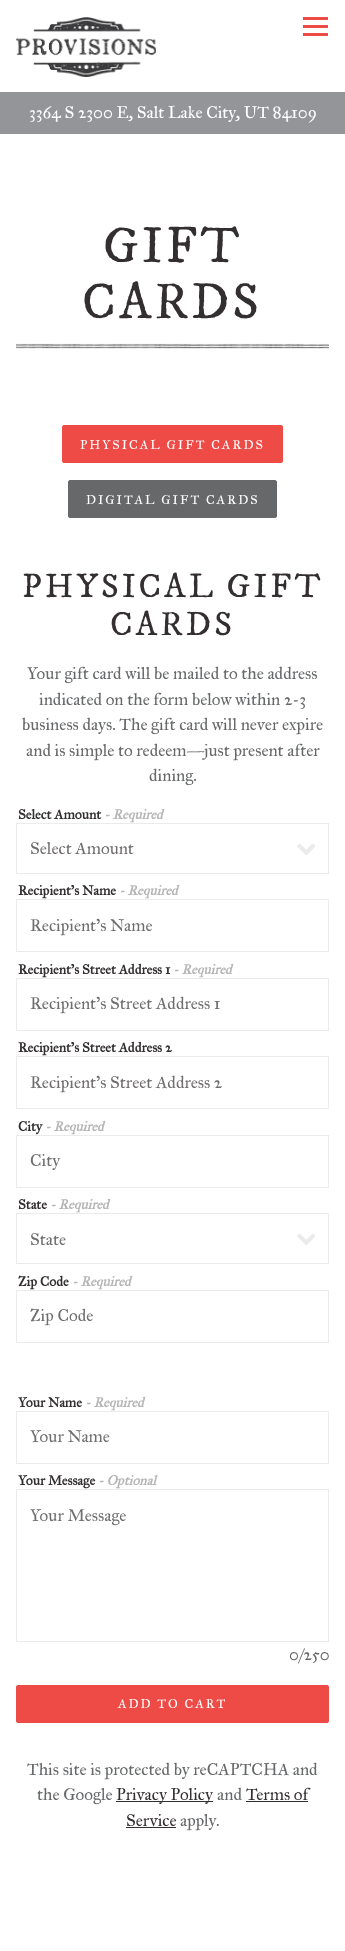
<!DOCTYPE html>
<meta charset="utf-8">
<style>body { margin: 0 } canvas { display: block }</style>
<canvas id="canvas" width="345" height="1951"></canvas>
<script type="module">
  const canvas = document.getElementById("canvas");
  const ctx = canvas.getContext("2d");
  ctx.miterLimit = 4;
  ctx.fontKerning = "normal";
  async function loadImage(src) {
    const img = new Image();
    img.src = src;
    await img.decode();
    return img;
  }

  ctx.fillStyle = "#ffffff";
  ctx.fillRect(0, 0, 345, 1951);
  ctx.drawImage(await loadImage("img1.png"), 16, 17, 140, 60);
  ctx.fillStyle = "#ee4b46";
  ctx.fillRect(303, 17, 25, 3);
  ctx.fillRect(303, 25, 25, 3);
  ctx.fillRect(303, 33, 25, 3);
  ctx.fillStyle = "#939599";
  ctx.fillRect(0, 92, 345, 42);
  ctx.font = "17px IM FELL Great Primer";
  ctx.fillStyle = "#ffffff";
  ctx.fillText("3364 S 2300 E, Salt Lake City, UT 84109", 29, 118);
  ctx.letterSpacing = "3px";
  ctx.font = "51px IM FELL DW Pica";
  ctx.fillStyle = "#332f30";
  ctx.fillText("GIFT", 103, 262);
  ctx.fillText("CARDS", 82, 318);
  ctx.drawImage(await loadImage("img2.png"), 16, 343, 313, 6);
  ctx.fillStyle = "#ee4b46";
  ctx.beginPath();
  ctx.roundRect(62.5, 425.5, 220, 37, 1.5);
  ctx.fill();
  ctx.strokeStyle = "#ee4b46";
  ctx.stroke();
  ctx.letterSpacing = "2px";
  ctx.font = "12.75px IM FELL Great Primer";
  ctx.fillStyle = "#ffffff";
  ctx.fillText("PHYSICAL GIFT CARDS", 80, 449);
  ctx.fillStyle = "#66686a";
  ctx.beginPath();
  ctx.roundRect(68.5, 480.5, 208, 37, 1.5);
  ctx.fill();
  ctx.strokeStyle = "#66686a";
  ctx.stroke();
  ctx.fillStyle = "#ffffff";
  ctx.fillText("DIGITAL GIFT CARDS", 86, 504);
  ctx.letterSpacing = "3px";
  ctx.font = "34px IM FELL DW Pica";
  ctx.fillStyle = "#332f30";
  ctx.fillText("PHYSICAL GIFT", 22, 597);
  ctx.fillText("CARDS", 110, 635);
  ctx.letterSpacing = "0px";
  ctx.font = "17px IM FELL Great Primer";
  ctx.fillStyle = "#66686a";
  ctx.fillText("Your gift card will be mailed to the address", 27, 679);
  ctx.fillText("indicated on the form below within 2-3", 39, 705);
  ctx.fillText("business days. The gift card will never expire", 22, 730);
  ctx.fillText("and is simple to redeem—just present after", 26, 756);
  ctx.fillText("dining.", 149, 781);
  ctx.font = "bold 13.6px IM FELL Great Primer";
  ctx.fillStyle = "#332f30";
  ctx.fillText("Select Amount", 18, 819);
  ctx.font = "italic bold 13.6px IM FELL Great Primer";
  ctx.fillStyle = "#b6b6b6";
  ctx.fillText("- Required", 104, 819);
  ctx.strokeStyle = "#ebebeb";
  ctx.strokeRect(16.5, 823.5, 312, 50);
  ctx.font = "17px IM FELL Great Primer";
  ctx.fillStyle = "#706d6e";
  ctx.fillText("Select Amount", 30, 854);
  ctx.drawImage(await loadImage("img3.png"), 297, 843, 19, 13);
  ctx.font = "bold 13.6px IM FELL Great Primer";
  ctx.fillStyle = "#332f30";
  ctx.fillText("Recipient’s Name", 18, 895);
  ctx.font = "italic bold 13.6px IM FELL Great Primer";
  ctx.fillStyle = "#b6b6b6";
  ctx.fillText("- Required", 119, 895);
  ctx.strokeRect(16.5, 899.5, 312, 52);
  ctx.font = "17px IM FELL Great Primer";
  ctx.fillStyle = "#706d6e";
  ctx.fillText("Recipient’s Name", 30, 931);
  ctx.font = "bold 13.6px IM FELL Great Primer";
  ctx.fillStyle = "#332f30";
  ctx.fillText("Recipient’s Street Address 1", 18, 974);
  ctx.font = "italic bold 13.6px IM FELL Great Primer";
  ctx.fillStyle = "#b6b6b6";
  ctx.fillText("- Required", 173, 974);
  ctx.strokeRect(16.5, 978.5, 312, 52);
  ctx.font = "17px IM FELL Great Primer";
  ctx.fillStyle = "#706d6e";
  ctx.fillText("Recipient’s Street Address 1", 30, 1009);
  ctx.font = "bold 13.6px IM FELL Great Primer";
  ctx.fillStyle = "#332f30";
  ctx.fillText("Recipient’s Street Address 2", 18, 1052);
  ctx.strokeRect(16.5, 1056.5, 312, 52);
  ctx.font = "17px IM FELL Great Primer";
  ctx.fillStyle = "#706d6e";
  ctx.fillText("Recipient’s Street Address 2", 30, 1088);
  ctx.font = "bold 13.6px IM FELL Great Primer";
  ctx.fillStyle = "#332f30";
  ctx.fillText("City", 18, 1131);
  ctx.font = "italic bold 13.6px IM FELL Great Primer";
  ctx.fillStyle = "#b6b6b6";
  ctx.fillText("- Required", 45, 1131);
  ctx.strokeRect(16.5, 1135.5, 312, 52);
  ctx.font = "17px IM FELL Great Primer";
  ctx.fillStyle = "#706d6e";
  ctx.fillText("City", 30, 1166);
  ctx.font = "bold 13.6px IM FELL Great Primer";
  ctx.fillStyle = "#332f30";
  ctx.fillText("State", 18, 1209);
  ctx.font = "italic bold 13.6px IM FELL Great Primer";
  ctx.fillStyle = "#b6b6b6";
  ctx.fillText("- Required", 50, 1209);
  ctx.strokeRect(16.5, 1213.5, 312, 50);
  ctx.font = "17px IM FELL Great Primer";
  ctx.fillStyle = "#706d6e";
  ctx.fillText("State", 30, 1245);
  ctx.drawImage(await loadImage("img3.png"), 297, 1233, 19, 13);
  ctx.font = "bold 13.6px IM FELL Great Primer";
  ctx.fillStyle = "#332f30";
  ctx.fillText("Zip Code", 18, 1286);
  ctx.font = "italic bold 13.6px IM FELL Great Primer";
  ctx.fillStyle = "#b6b6b6";
  ctx.fillText("- Required", 72, 1286);
  ctx.strokeRect(16.5, 1290.5, 312, 52);
  ctx.font = "17px IM FELL Great Primer";
  ctx.fillStyle = "#706d6e";
  ctx.fillText("Zip Code", 30, 1321);
  ctx.font = "bold 13.6px IM FELL Great Primer";
  ctx.fillStyle = "#332f30";
  ctx.fillText("Your Name", 18, 1407);
  ctx.font = "italic bold 13.6px IM FELL Great Primer";
  ctx.fillStyle = "#b6b6b6";
  ctx.fillText("- Required", 85, 1407);
  ctx.strokeRect(16.5, 1411.5, 312, 52);
  ctx.font = "17px IM FELL Great Primer";
  ctx.fillStyle = "#706d6e";
  ctx.fillText("Your Name", 30, 1442);
  ctx.font = "bold 13.6px IM FELL Great Primer";
  ctx.fillStyle = "#332f30";
  ctx.fillText("Your Message", 18, 1485);
  ctx.font = "italic bold 13.6px IM FELL Great Primer";
  ctx.fillStyle = "#b6b6b6";
  ctx.fillText("- Optional", 98, 1485);
  ctx.strokeRect(16.5, 1489.5, 312, 152);
  ctx.font = "17px IM FELL Great Primer";
  ctx.fillStyle = "#706d6e";
  ctx.fillText("Your Message", 30, 1521);
  ctx.fillStyle = "#66686a";
  ctx.fillText("0/250", 289, 1660);
  ctx.fillStyle = "#ee4b46";
  ctx.beginPath();
  ctx.roundRect(16.5, 1685.5, 312, 37, 1.5);
  ctx.fill();
  ctx.strokeStyle = "#ee4b46";
  ctx.stroke();
  ctx.letterSpacing = "2px";
  ctx.font = "12.75px IM FELL Great Primer";
  ctx.fillStyle = "#ffffff";
  ctx.fillText("ADD TO CART", 118, 1708);
  ctx.letterSpacing = "0px";
  ctx.font = "17px IM FELL Great Primer";
  ctx.fillStyle = "#66686a";
  ctx.fillText("This site is protected by reCAPTCHA and", 27, 1775);
  ctx.fillText("the Google", 37, 1800);
  ctx.fillStyle = "#332f30";
  ctx.fillRect(116, 1801, 97, 1);
  ctx.fillText("Privacy Policy", 116, 1800);
  ctx.fillStyle = "#66686a";
  ctx.fillText("and", 217, 1800);
  ctx.fillStyle = "#332f30";
  ctx.fillText("Terms of", 246, 1800);
  ctx.fillRect(246, 1801, 62, 1);
  ctx.fillText("Service", 126, 1826);
  ctx.fillRect(126, 1827, 50, 1);
  ctx.fillStyle = "#66686a";
  ctx.fillText("apply.", 180, 1826);
</script>
